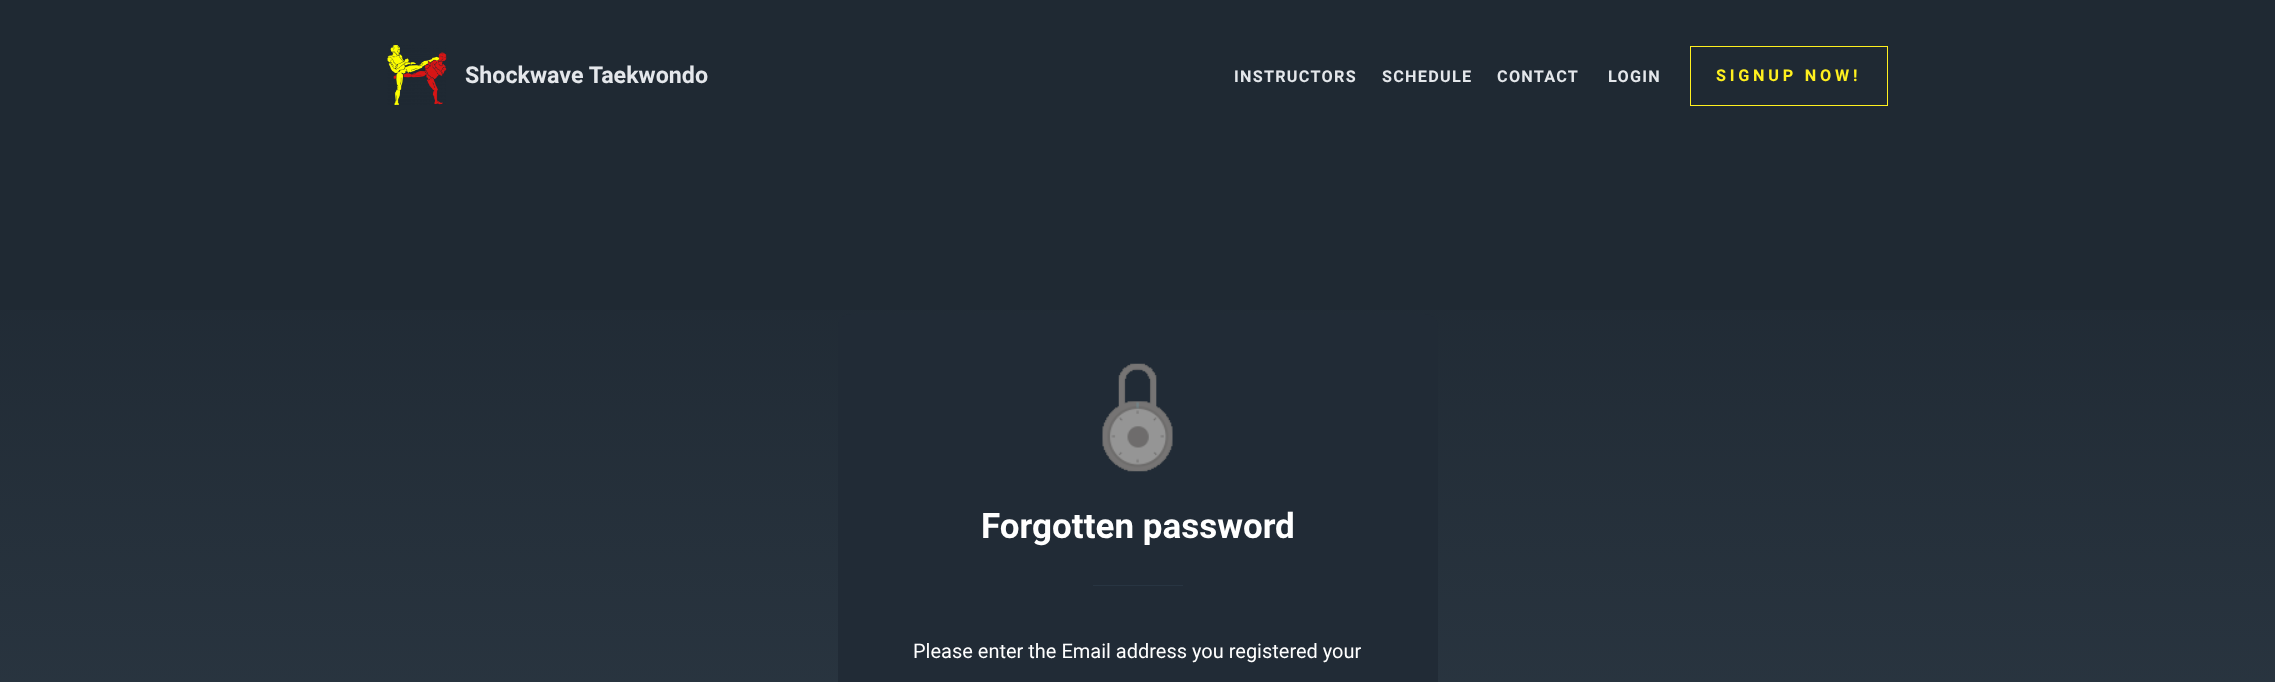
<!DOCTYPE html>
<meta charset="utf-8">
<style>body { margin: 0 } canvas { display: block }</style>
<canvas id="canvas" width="2275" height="682"></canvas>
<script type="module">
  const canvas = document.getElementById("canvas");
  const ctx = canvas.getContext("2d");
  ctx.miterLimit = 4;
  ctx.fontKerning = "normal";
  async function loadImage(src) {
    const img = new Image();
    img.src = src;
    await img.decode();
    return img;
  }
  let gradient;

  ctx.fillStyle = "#1f2933";
  ctx.fillRect(0, 0, 2275, 682);
  ctx.drawImage(await loadImage("img1.png"), 387, 45, 60, 60);
  ctx.font = "bold 23.25px Roboto";
  ctx.fillStyle = "#e4e7eb";
  ctx.fillText("Shockwave Taekwondo", 465, 83);
  ctx.letterSpacing = "1.25px";
  ctx.font = "bold 16.25px Roboto";
  ctx.fillText("INSTRUCTORS", 1234, 82);
  ctx.fillText("SCHEDULE", 1382, 82);
  ctx.fillText("CONTACT", 1497, 82);
  ctx.fillText("LOGIN", 1608, 82);
  ctx.strokeStyle = "#fff01f";
  ctx.strokeRect(1690.5, 46.5, 197, 59);
  ctx.letterSpacing = "3.75px";
  ctx.fillStyle = "#fff01f";
  ctx.fillText("SIGNUP NOW!", 1716, 81);
  gradient = ctx.createLinearGradient(1138, 212, 1138, 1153);
  gradient.addColorStop(0, "#1f2933");
  gradient.addColorStop(1, "#323f4b");
  ctx.fillStyle = gradient;
  ctx.fillRect(0, 310, 2275, 372);
  ctx.fillStyle = "#212b36";
  ctx.beginPath();
  ctx.roundRect(838, 314, 600, 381, 13);
  ctx.fill();
  ctx.drawImage(await loadImage("img2.png"), 1102, 363, 71, 109);
  ctx.letterSpacing = "0px";
  ctx.font = "bold 35px Roboto";
  ctx.fillStyle = "#ffffff";
  ctx.fillText("Forgotten password", 981, 538);
  ctx.fillStyle = "#283542";
  ctx.fillRect(1093, 585, 90, 1);
  ctx.font = "20px Roboto";
  ctx.fillStyle = "#ffffff";
  ctx.fillText("Please enter the Email address you registered your", 913, 658);
</script>
